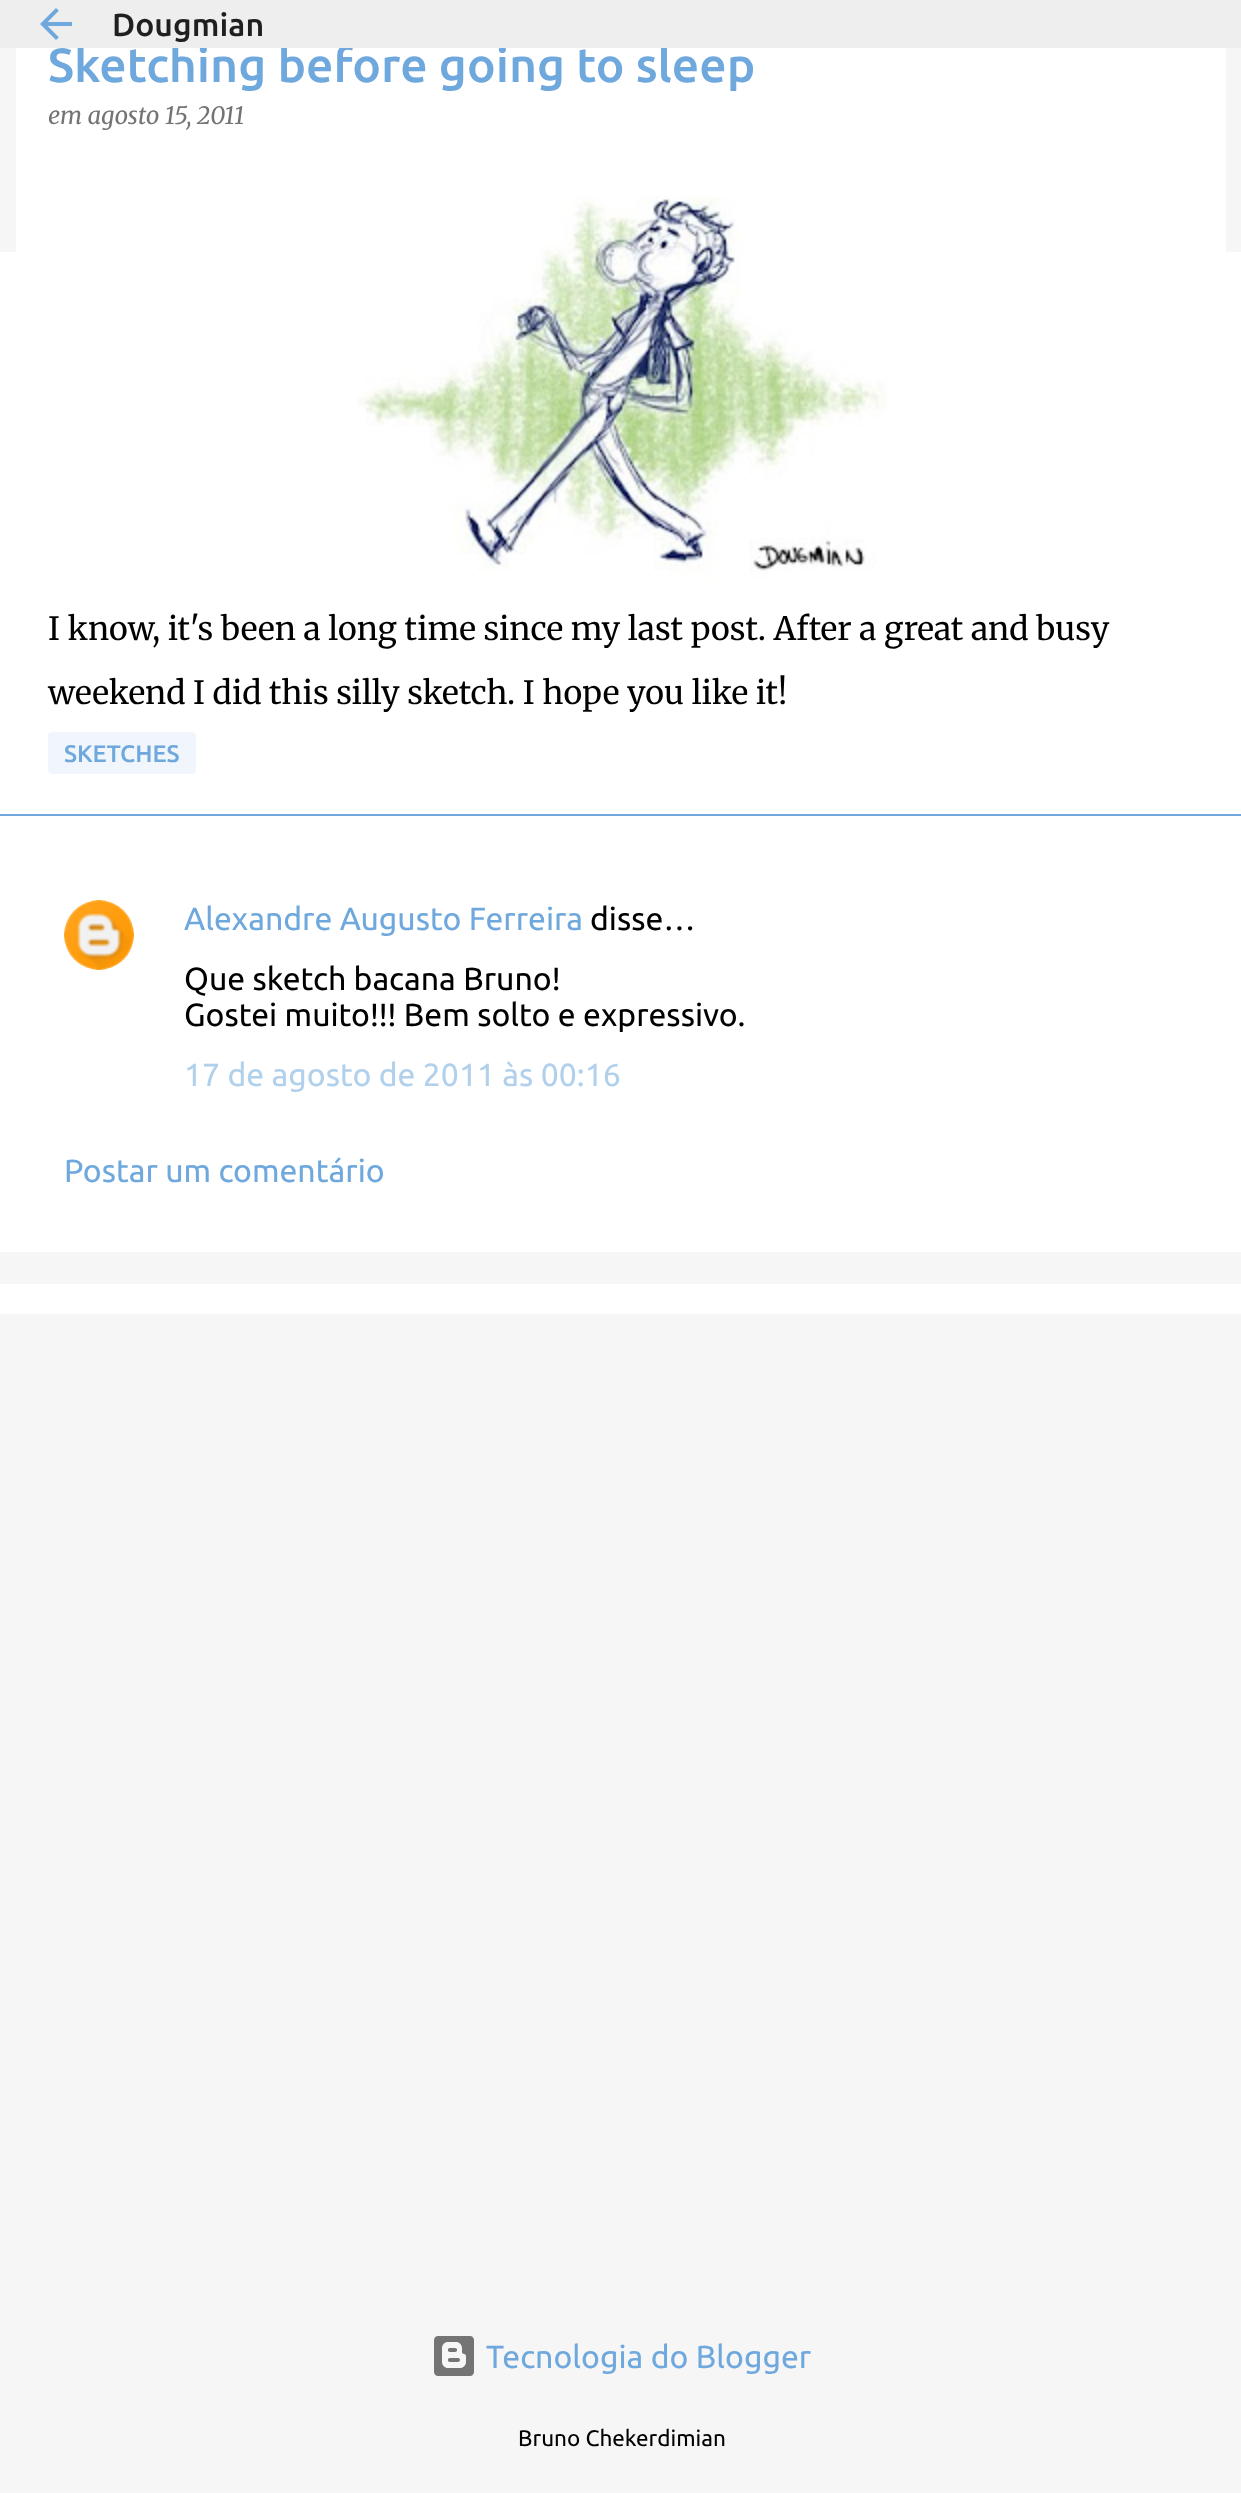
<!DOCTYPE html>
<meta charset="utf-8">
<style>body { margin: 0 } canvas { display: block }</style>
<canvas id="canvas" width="1241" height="2493"></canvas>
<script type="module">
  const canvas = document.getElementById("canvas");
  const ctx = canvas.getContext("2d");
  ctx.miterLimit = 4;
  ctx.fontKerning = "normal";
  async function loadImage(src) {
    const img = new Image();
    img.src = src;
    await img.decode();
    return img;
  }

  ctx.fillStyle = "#f6f6f6";
  ctx.fillRect(0, 0, 1241, 2493);
  ctx.fillStyle = "#ffffff";
  ctx.fillRect(16, 48, 1210, 204);
  ctx.font = "500 48px Ubuntu";
  ctx.fillStyle = "#6fa8dc";
  ctx.fillText("Sketching before going to sleep", 48, 82);
  ctx.fillStyle = "#eeeeee";
  ctx.fillRect(0, 0, 1241, 48);
  ctx.drawImage(await loadImage("img1.png"), 40, 8, 32, 32);
  ctx.font = "500 32px Ubuntu";
  ctx.fillStyle = "#1f1f1f";
  ctx.fillText("Dougmian", 112, 36);
  ctx.fillStyle = "#ffffff";
  ctx.fillRect(0, 252, 1241, 562);
  ctx.font = "italic 24px Merriweather";
  ctx.fillStyle = "#747474";
  ctx.fillText("em agosto 15, 2011", 48, 124);
  ctx.drawImage(await loadImage("img2.png"), 357, 196, 530, 384);
  ctx.font = "32px Merriweather";
  ctx.fillStyle = "#000000";
  ctx.fillText("I know, it's been a long time since my last post. After a great and busy", 48, 640);
  ctx.fillText("weekend I did this silly sketch. I hope you like it!", 48, 704);
  ctx.fillStyle = "#f1f6fc";
  ctx.beginPath();
  ctx.roundRect(48, 732, 148, 42, 4);
  ctx.fill();
  ctx.font = "500 24px Ubuntu";
  ctx.fillStyle = "#6fa8dc";
  ctx.fillText("SKETCHES", 64, 762);
  ctx.fillStyle = "#ffffff";
  ctx.fillRect(0, 816, 1241, 436);
  ctx.fillStyle = "#6fa8dc";
  ctx.fillRect(0, 814, 1241, 2);
  ctx.drawImage(await loadImage("img3.png"), 64, 900, 70, 70);
  ctx.font = "32px Ubuntu";
  ctx.fillText("Alexandre Augusto Ferreira", 184, 930);
  ctx.fillStyle = "#000000";
  ctx.fillText("disse…", 590, 930);
  ctx.fillText("Que sketch bacana Bruno!", 184, 990);
  ctx.fillText("Gostei muito!!! Bem solto e expressivo.", 184, 1026);
  ctx.fillStyle = "#b1d0ec";
  ctx.fillText("17 de agosto de 2011 às 00:16", 184, 1086);
  ctx.fillStyle = "#6fa8dc";
  ctx.fillText("Postar um comentário", 64, 1182);
  ctx.fillStyle = "#ffffff";
  ctx.fillRect(0, 1284, 1241, 30);
  ctx.drawImage(await loadImage("img4.png"), 434, 2336, 40, 40);
  ctx.fillStyle = "#6fa8dc";
  ctx.fillText("Tecnologia do Blogger", 486, 2368);
  ctx.font = "22.5px Ubuntu";
  ctx.fillStyle = "#000000";
  ctx.fillText("Bruno Chekerdimian", 518, 2446);
</script>
